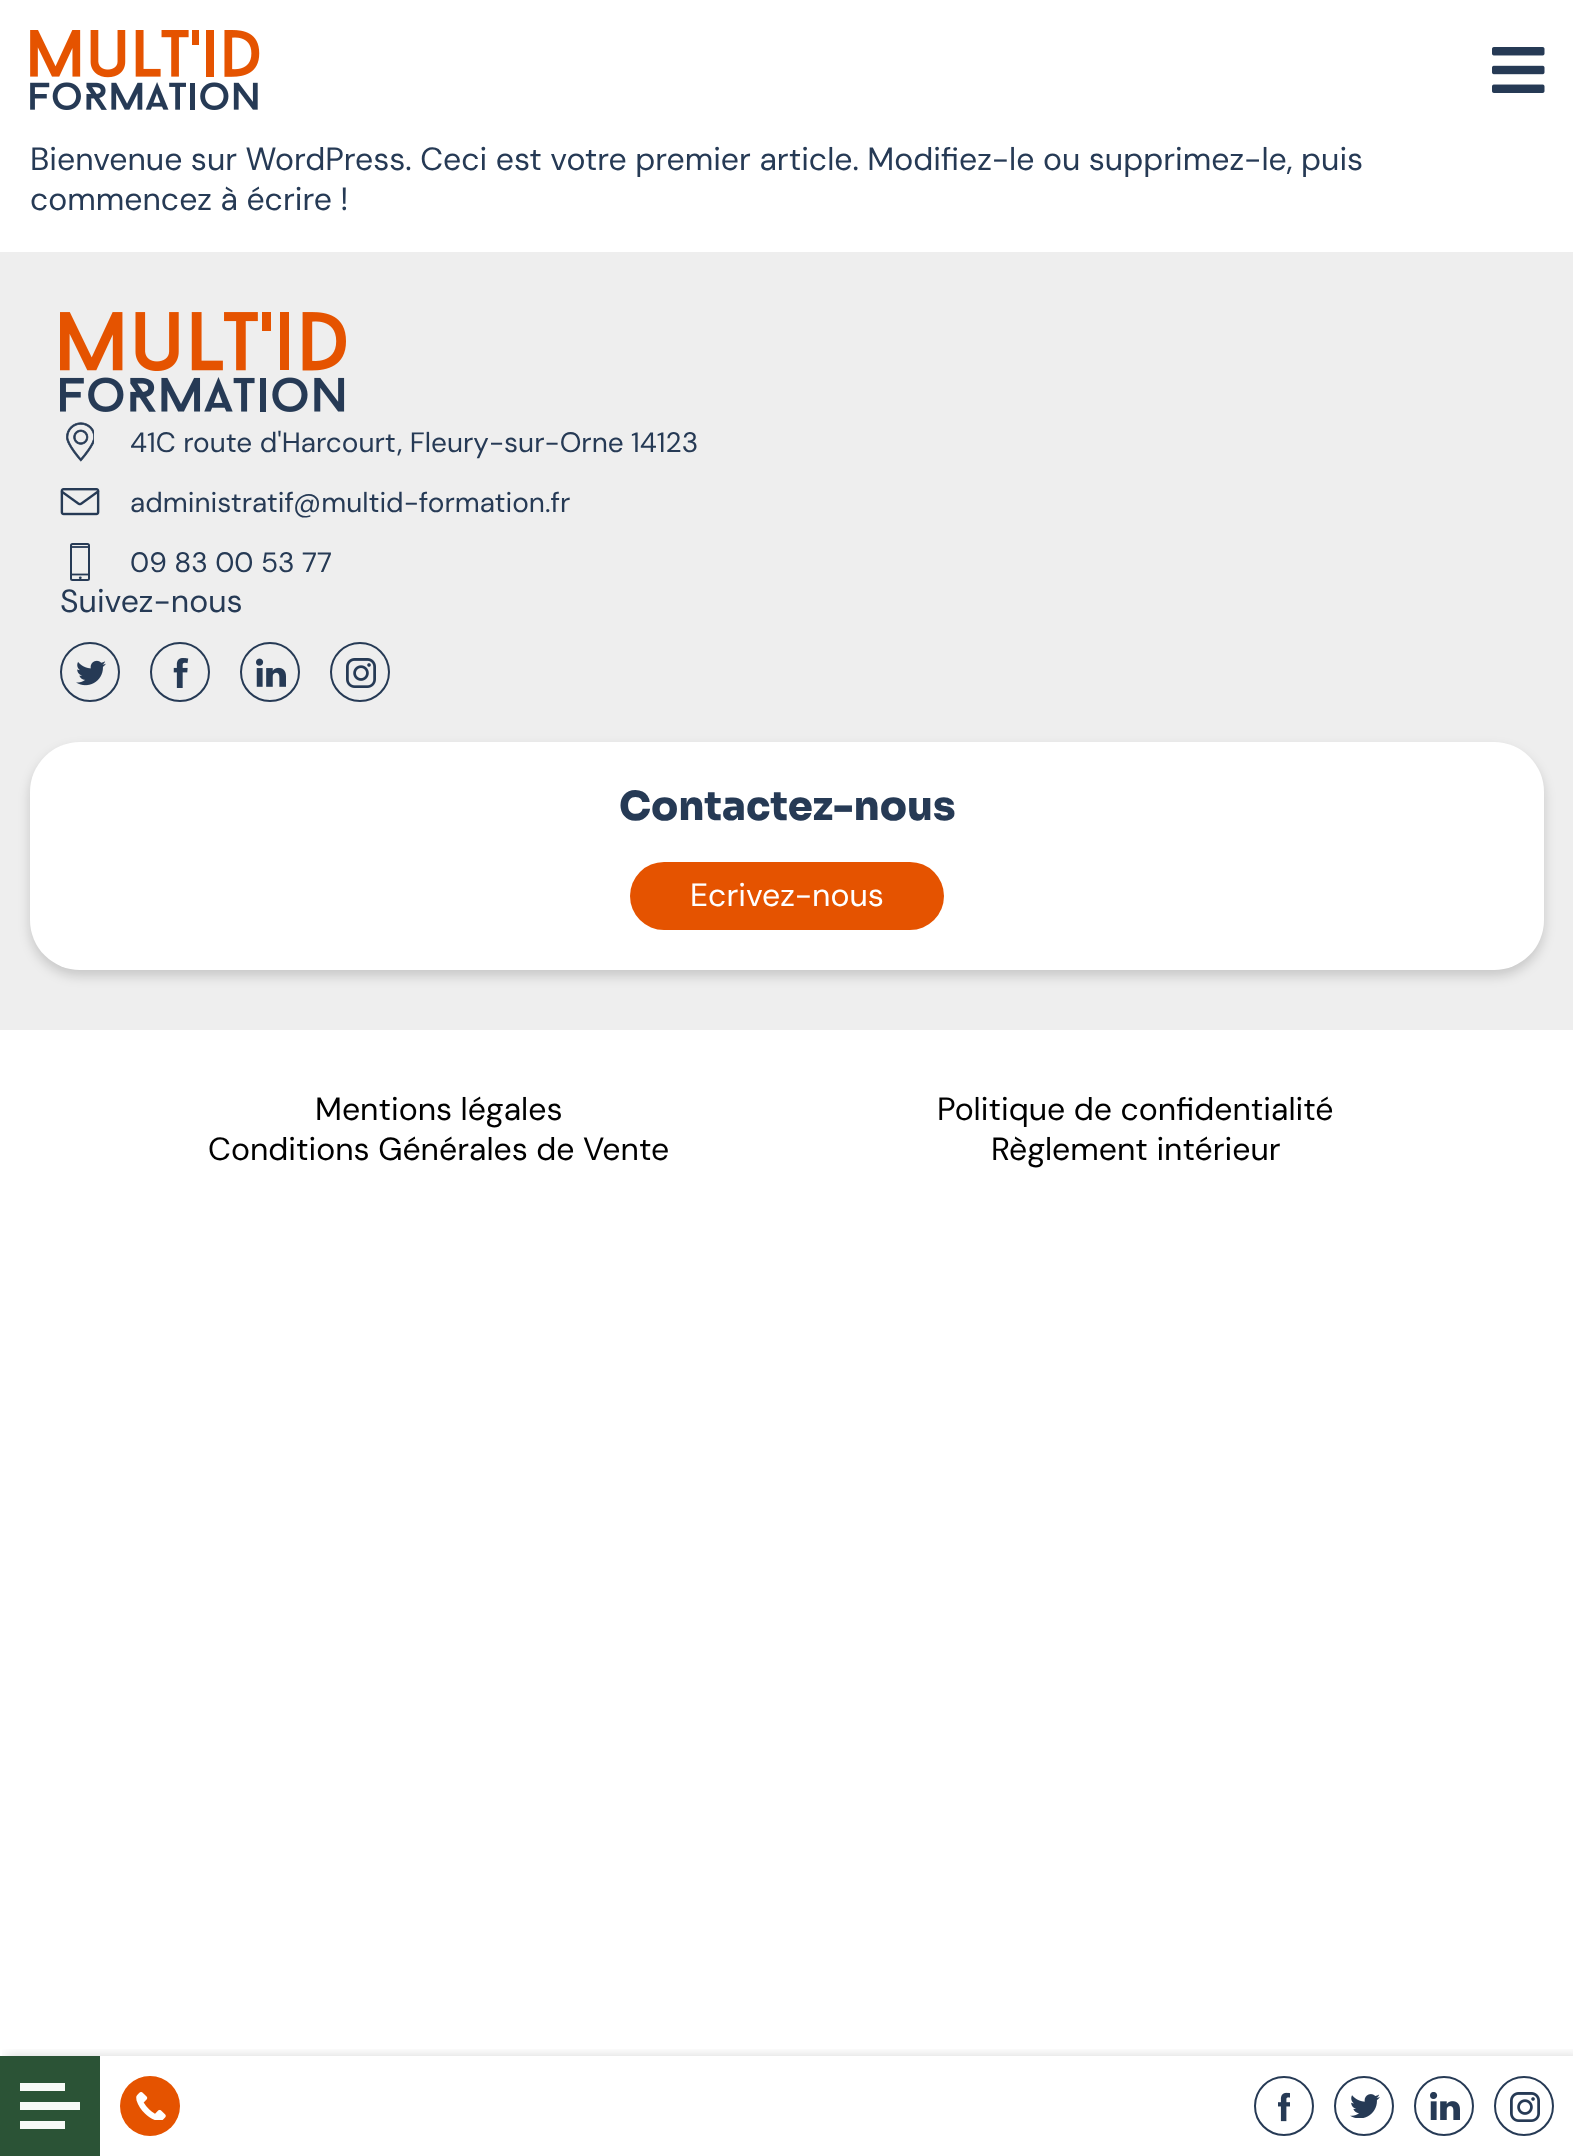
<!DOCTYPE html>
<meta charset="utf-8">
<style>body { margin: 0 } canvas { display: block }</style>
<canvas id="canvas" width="1573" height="2156"></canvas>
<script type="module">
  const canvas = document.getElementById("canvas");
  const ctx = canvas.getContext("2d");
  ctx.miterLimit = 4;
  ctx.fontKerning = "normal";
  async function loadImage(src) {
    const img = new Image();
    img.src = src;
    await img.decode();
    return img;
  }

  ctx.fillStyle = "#ffffff";
  ctx.fillRect(0, 0, 1573, 2156);
  ctx.drawImage(await loadImage("img1.png"), 30, 30, 230, 80);
  ctx.drawImage(await loadImage("img2.png"), 1492, 47, 53, 46);
  ctx.font = "32px DM Sans";
  ctx.fillStyle = "#263a55";
  ctx.fillText("Bienvenue sur WordPress. Ceci est votre premier article. Modifiez-le ou supprimez-le, puis", 30, 170);
  ctx.fillText("commencez à écrire !", 30, 210);
  ctx.fillStyle = "#eeeeee";
  ctx.fillRect(0, 252, 1573, 778);
  ctx.drawImage(await loadImage("img3.png"), 60, 312, 286, 100);
  ctx.drawImage(await loadImage("img4.png"), 66, 422, 28, 40);
  ctx.font = "28px DM Sans";
  ctx.fillStyle = "#263a55";
  ctx.fillText("41C route d'Harcourt, Fleury-sur-Orne 14123", 130, 452);
  ctx.drawImage(await loadImage("img5.png"), 60, 488, 40, 28);
  ctx.fillText("administratif@multid-formation.fr", 130, 512);
  ctx.beginPath();
  ctx.roundRect(71, 544, 18, 36, 1.5);
  ctx.strokeStyle = "#263a55";
  ctx.lineWidth = 2;
  ctx.stroke();
  ctx.fillStyle = "rgba(38, 58, 85, 0.9)";
  ctx.fillRect(71, 546, 18, 2);
  ctx.beginPath();
  ctx.moveTo(70.5, 574.5);
  ctx.lineTo(89, 574.5);
  ctx.lineWidth = 1.8;
  ctx.stroke();
  ctx.fillStyle = "#263a55";
  ctx.beginPath();
  ctx.arc(80.3, 577.8, 1.4, 0, Math.PI * 2);
  ctx.fill();
  ctx.fillText("09 83 00 53 77", 130, 572);
  ctx.font = "32px DM Sans";
  ctx.fillText("Suivez-nous", 60, 612);
  ctx.drawImage(await loadImage("img6.png"), 76, 660, 30, 26);
  ctx.beginPath();
  ctx.arc(90, 672, 29, 0, Math.PI * 2);
  ctx.lineWidth = 2;
  ctx.stroke();
  ctx.drawImage(await loadImage("img7.png"), 173, 658, 16, 30);
  ctx.beginPath();
  ctx.arc(180, 672, 29, 0, Math.PI * 2);
  ctx.stroke();
  ctx.drawImage(await loadImage("img8.png"), 256, 658, 30, 29);
  ctx.beginPath();
  ctx.arc(270, 672, 29, 0, Math.PI * 2);
  ctx.stroke();
  ctx.drawImage(await loadImage("img9.png"), 346, 658, 30, 30);
  ctx.beginPath();
  ctx.arc(360, 672, 29, 0, Math.PI * 2);
  ctx.stroke();
  ctx.fillStyle = "rgba(0, 0, 0, 0.16)";
  ctx.filter = "blur(6px)";
  ctx.beginPath();
  ctx.roundRect(30, 748, 1514, 228, 50);
  ctx.fill();
  ctx.filter = "none";
  ctx.fillStyle = "#ffffff";
  ctx.beginPath();
  ctx.roundRect(30, 742, 1514, 228, 50);
  ctx.fill();
  ctx.font = "800 40px Sora";
  ctx.fillStyle = "#263a55";
  ctx.fillText("Contactez-nous", 619, 820);
  ctx.fillStyle = "#e55300";
  ctx.beginPath();
  ctx.roundRect(630, 862, 314, 68, 34);
  ctx.fill();
  ctx.font = "32px DM Sans";
  ctx.fillStyle = "#ffffff";
  ctx.fillText("Ecrivez-nous", 690, 906);
  ctx.fillStyle = "#000000";
  ctx.fillText("Mentions légales", 315, 1120);
  ctx.fillText("Politique de confidentialité", 937, 1120);
  ctx.fillText("Conditions Générales de Vente", 208, 1160);
  ctx.fillText("Règlement intérieur", 991, 1160);
  ctx.save();
  ctx.beginPath();
  ctx.rect(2, 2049, 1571, 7);
  ctx.clip();
  ctx.fillStyle = "rgba(0, 0, 0, 0.16)";
  ctx.filter = "blur(6px)";
  ctx.beginPath();
  ctx.rect(6, 2056, 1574, 100);
  ctx.fill();
  ctx.filter = "none";
  ctx.restore();
  ctx.fillStyle = "#2b5336";
  ctx.fillRect(0, 2056, 100, 100);
  ctx.fillStyle = "#f7f9f7";
  ctx.fillRect(20, 2083, 45, 8);
  ctx.fillRect(20, 2121, 45, 8);
  ctx.fillRect(20, 2102, 60, 8);
  ctx.fillStyle = "#e55300";
  ctx.beginPath();
  ctx.arc(150, 2106, 30, 0, Math.PI * 2);
  ctx.fill();
  ctx.drawImage(await loadImage("img10.png"), 136, 2092, 30, 28);
  ctx.beginPath();
  ctx.arc(1284, 2106, 29, 0, Math.PI * 2);
  ctx.stroke();
  ctx.drawImage(await loadImage("img11.png"), 1278, 2092, 12, 30);
  ctx.beginPath();
  ctx.arc(1364, 2106, 29, 0, Math.PI * 2);
  ctx.stroke();
  ctx.drawImage(await loadImage("img12.png"), 1350, 2094, 30, 24);
  ctx.beginPath();
  ctx.arc(1444, 2106, 29, 0, Math.PI * 2);
  ctx.stroke();
  ctx.drawImage(await loadImage("img13.png"), 1430, 2092, 30, 28);
  ctx.beginPath();
  ctx.arc(1524, 2106, 29, 0, Math.PI * 2);
  ctx.stroke();
  ctx.drawImage(await loadImage("img14.png"), 1510, 2092, 30, 30);
</script>
